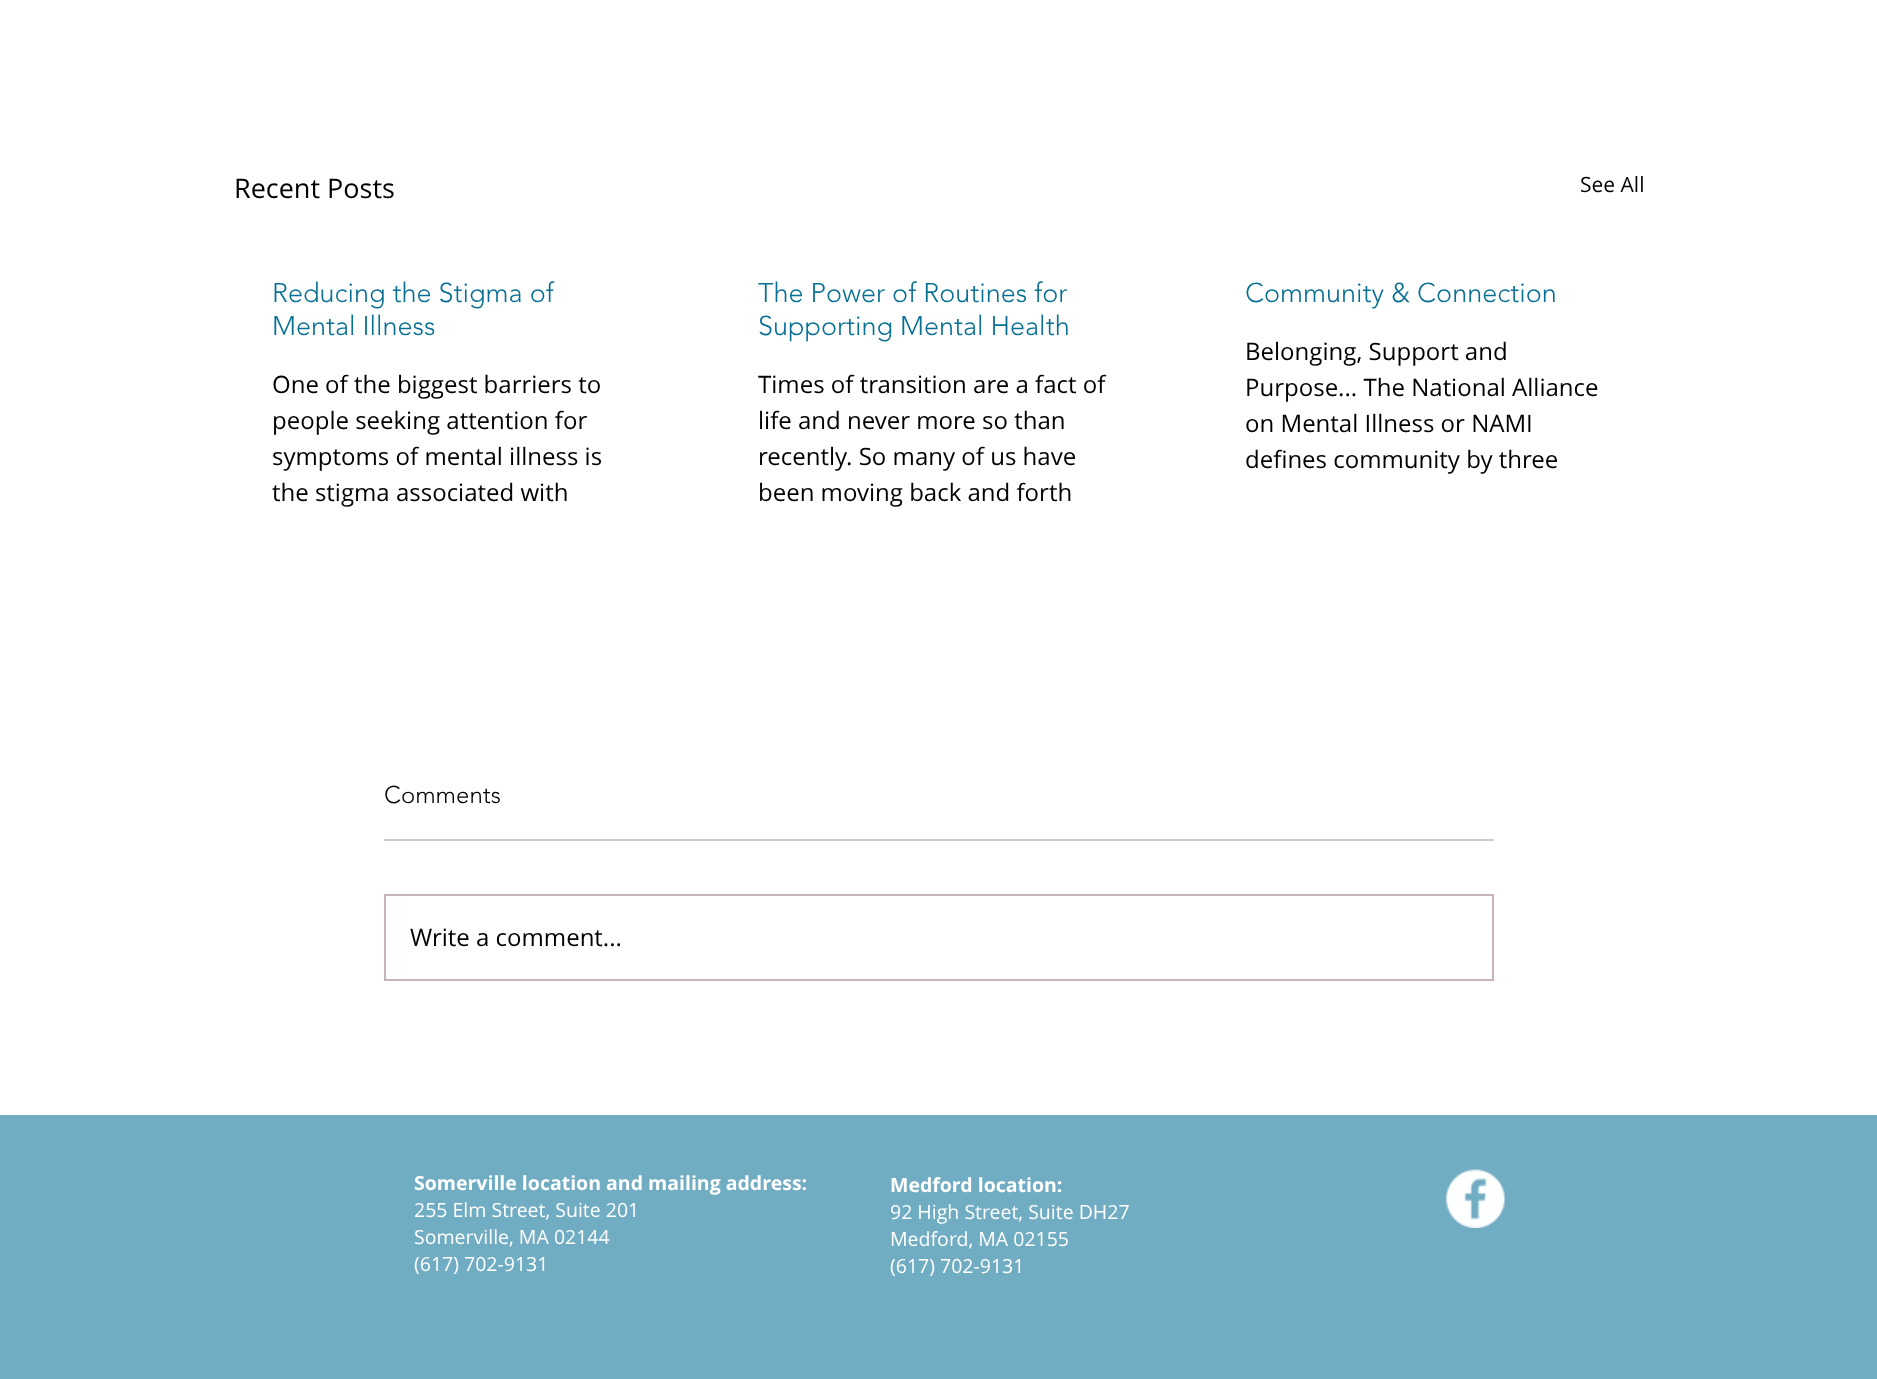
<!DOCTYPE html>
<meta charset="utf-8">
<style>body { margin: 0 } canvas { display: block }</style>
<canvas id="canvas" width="1877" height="1379"></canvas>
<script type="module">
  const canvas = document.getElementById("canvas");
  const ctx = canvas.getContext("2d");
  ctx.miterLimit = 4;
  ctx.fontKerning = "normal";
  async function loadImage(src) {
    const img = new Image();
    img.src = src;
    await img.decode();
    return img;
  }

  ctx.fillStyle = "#ffffff";
  ctx.fillRect(0, 0, 1877, 1379);
  ctx.font = "27px Open Sans";
  ctx.fillStyle = "#000000";
  ctx.fillText("Recent Posts", 234, 198);
  ctx.font = "21px Open Sans";
  ctx.fillText("See All", 1580, 192);
  ctx.font = "300 27px 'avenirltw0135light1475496'";
  ctx.fillStyle = "#087095";
  ctx.fillText("Reducing the Stigma of", 272, 302);
  ctx.fillText("Mental Illness", 272, 335);
  ctx.font = "24px Open Sans";
  ctx.fillStyle = "#000000";
  ctx.fillText("One of the biggest barriers to", 272, 393);
  ctx.fillText("people seeking attention for", 272, 429);
  ctx.fillText("symptoms of mental illness is", 272, 465);
  ctx.fillText("the stigma associated with", 272, 501);
  ctx.font = "300 27px 'avenirltw0135light1475496'";
  ctx.fillStyle = "#087095";
  ctx.fillText("The Power of Routines for", 758, 302);
  ctx.fillText("Supporting Mental Health", 758, 335);
  ctx.font = "24px Open Sans";
  ctx.fillStyle = "#000000";
  ctx.fillText("Times of transition are a fact of", 758, 393);
  ctx.fillText("life and never more so than", 758, 429);
  ctx.fillText("recently. So many of us have", 758, 465);
  ctx.fillText("been moving back and forth", 758, 501);
  ctx.font = "300 27px 'avenirltw0135light1475496'";
  ctx.fillStyle = "#087095";
  ctx.fillText("Community & Connection", 1245, 302);
  ctx.font = "24px Open Sans";
  ctx.fillStyle = "#000000";
  ctx.fillText("Belonging, Support and", 1245, 360);
  ctx.fillText("Purpose... The National Alliance", 1245, 396);
  ctx.fillText("on Mental Illness or NAMI", 1245, 432);
  ctx.fillText("defines community by three", 1245, 468);
  ctx.font = "300 24px 'avenirltw0135light1475496'";
  ctx.fillText("Comments", 384, 803);
  ctx.fillStyle = "#cccccc";
  ctx.fillRect(384, 839, 1110, 2);
  ctx.strokeStyle = "#c7b4b4";
  ctx.lineWidth = 2;
  ctx.strokeRect(385, 895, 1108, 85);
  ctx.font = "24px Open Sans";
  ctx.fillStyle = "#000000";
  ctx.fillText("Write a comment...", 410, 946);
  ctx.fillStyle = "#70acc2";
  ctx.fillRect(0, 1115, 1877, 264);
  ctx.font = "bold 19.5px Open Sans";
  ctx.fillStyle = "#ffffff";
  ctx.fillText("Somerville location and mailing address:", 414, 1190);
  ctx.font = "19.5px Open Sans";
  ctx.fillText("255 Elm Street, Suite 201", 414, 1217);
  ctx.fillText("Somerville, MA 02144", 414, 1244);
  ctx.fillText("(617) 702-9131", 414, 1271);
  ctx.font = "bold 19.5px Open Sans";
  ctx.fillText("Medford location:", 890, 1192);
  ctx.font = "19.5px Open Sans";
  ctx.fillText("92 High Street, Suite DH27", 890, 1219);
  ctx.fillText("Medford, MA 02155", 890, 1246);
  ctx.fillText("(617) 702-9131", 890, 1273);
  ctx.drawImage(await loadImage("img1.png"), 1446, 1169, 59, 59);
</script>
